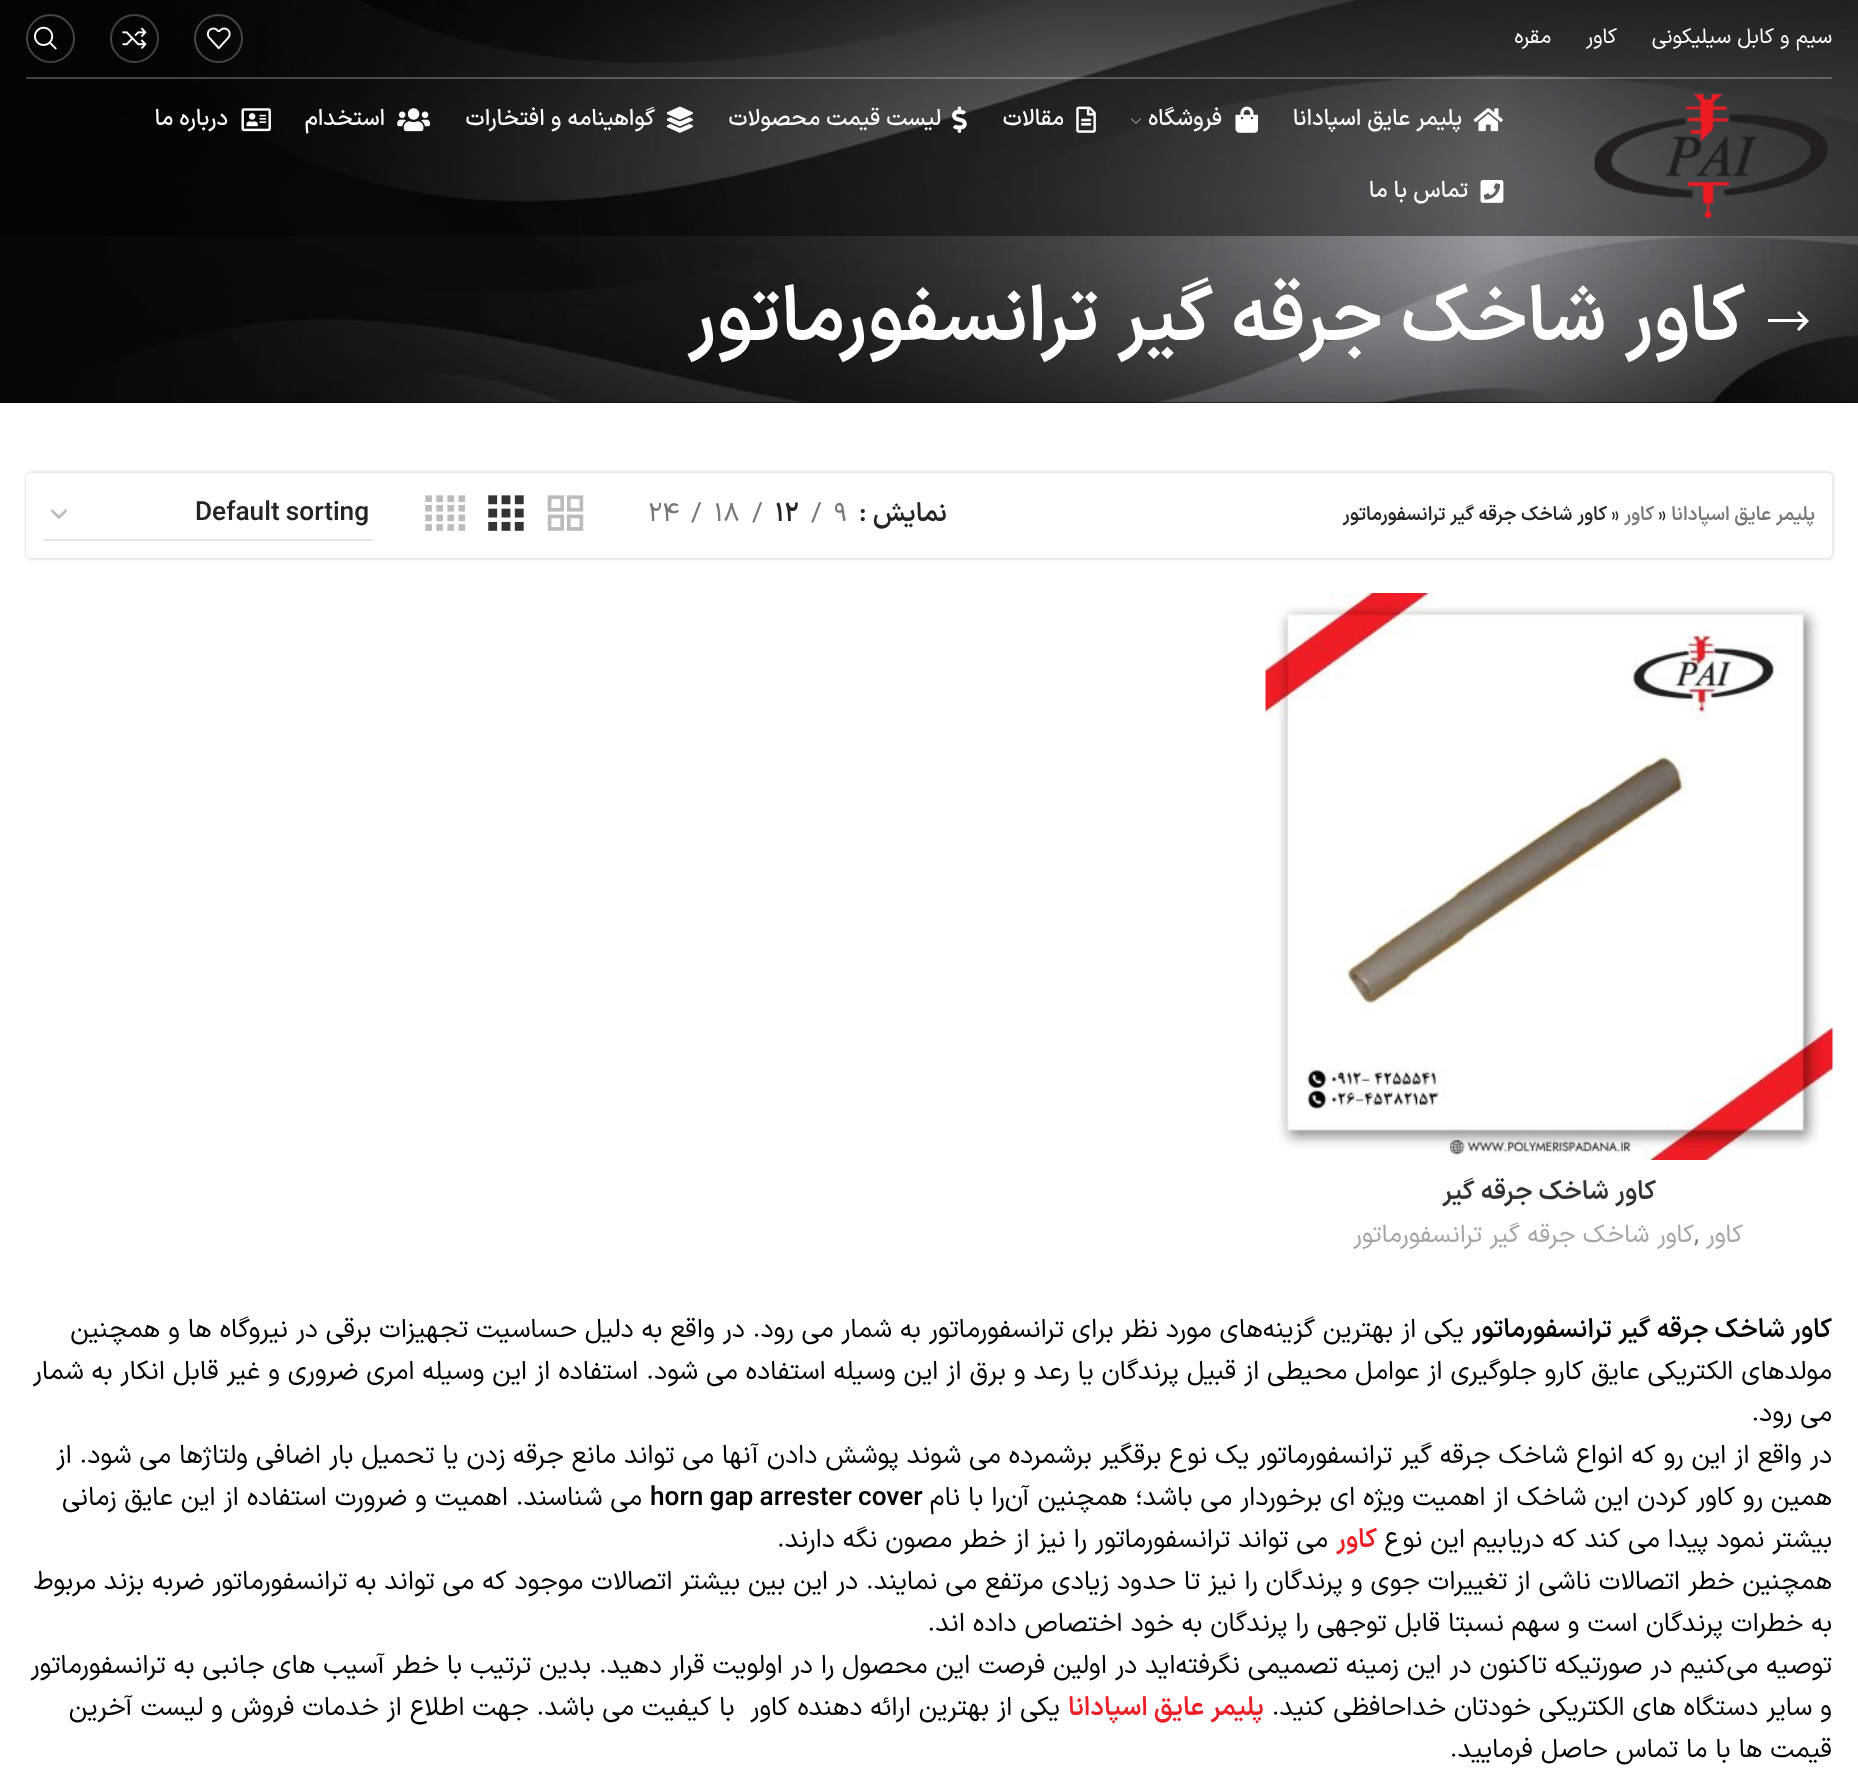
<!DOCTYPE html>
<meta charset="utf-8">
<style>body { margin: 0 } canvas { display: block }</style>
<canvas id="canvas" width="1858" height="1778"></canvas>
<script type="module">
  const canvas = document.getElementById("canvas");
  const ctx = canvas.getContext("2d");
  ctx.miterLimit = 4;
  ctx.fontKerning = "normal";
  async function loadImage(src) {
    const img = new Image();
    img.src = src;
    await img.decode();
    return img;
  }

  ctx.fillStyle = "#ffffff";
  ctx.fillRect(0, 0, 1858, 1778);
  ctx.fillStyle = "#000000";
  ctx.fillRect(0, 402, 1858, 1);
  ctx.drawImage(await loadImage("img14.png"), 0, 0, 1858, 403);
  ctx.fillStyle = "rgba(0, 0, 0, 0.4)";
  ctx.fillRect(0, 0, 1858, 79);
  ctx.fillStyle = "rgba(255, 255, 255, 0.25)";
  ctx.fillRect(26, 77, 1806, 2);
  ctx.direction = "rtl";
  ctx.font = "21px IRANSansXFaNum";
  ctx.fillStyle = "#ffffff";
  ctx.fillText("سیم و کابل سیلیکونی", 1832, 43);
  ctx.fillText("کاور", 1617, 43);
  ctx.fillText("مقره", 1551, 43);
  ctx.beginPath();
  ctx.arc(218.5, 38.5, 23.5, 0, Math.PI * 2);
  ctx.strokeStyle = "#444545";
  ctx.lineWidth = 2;
  ctx.stroke();
  ctx.drawImage(await loadImage("img1.png"), 206, 27, 25, 22);
  ctx.beginPath();
  ctx.arc(134.5, 38.5, 23.5, 0, Math.PI * 2);
  ctx.strokeStyle = "#424343";
  ctx.stroke();
  ctx.drawImage(await loadImage("img2.png"), 122, 27, 25, 22);
  ctx.beginPath();
  ctx.arc(50.5, 38.5, 23.5, 0, Math.PI * 2);
  ctx.stroke();
  ctx.drawImage(await loadImage("img3.png"), 34, 26, 23, 24);
  ctx.fillStyle = "rgba(0, 0, 0, 0.4)";
  ctx.fillRect(0, 79, 1858, 157);
  ctx.drawImage(await loadImage("img4.png"), 1594, 93, 234, 126);
  ctx.drawImage(await loadImage("img5.png"), 1473, 108, 30, 24);
  ctx.font = "500 22.75px IRANSansXFaNum";
  ctx.fillStyle = "#ffffff";
  ctx.fillText("پلیمر عایق اسپادانا", 1462, 125);
  ctx.drawImage(await loadImage("img6.png"), 1235, 106, 23, 27);
  ctx.fillText("فروشگاه", 1222, 125);
  ctx.drawImage(await loadImage("img7.png"), 1131, 118, 10, 6);
  ctx.drawImage(await loadImage("img8.png"), 1076, 106, 20, 27);
  ctx.fillText("مقالات", 1064, 125);
  ctx.drawImage(await loadImage("img9.png"), 952, 106, 15, 27);
  ctx.fillText("لیست قیمت محصولات", 941, 125);
  ctx.drawImage(await loadImage("img10.png"), 666, 106, 27, 27);
  ctx.fillText("گواهینامه و افتخارات", 655, 125);
  ctx.drawImage(await loadImage("img11.png"), 397, 108, 33, 24);
  ctx.fillText("استخدام", 385, 125);
  ctx.drawImage(await loadImage("img12.png"), 241, 108, 30, 24);
  ctx.fillText("درباره ما", 228, 125);
  ctx.drawImage(await loadImage("img13.png"), 1480, 180, 24, 23);
  ctx.fillText("تماس با ما", 1468, 197);
  ctx.beginPath();
  ctx.moveTo(1809, 321);
  ctx.lineTo(1799, 311);
  ctx.lineTo(1797, 313);
  ctx.lineTo(1803, 319);
  ctx.lineTo(1768, 319);
  ctx.lineTo(1768, 322);
  ctx.lineTo(1803, 322);
  ctx.lineTo(1797, 329);
  ctx.lineTo(1799, 331);
  ctx.closePath();
  ctx.fill();
  ctx.font = "600 77px IRANSansXFaNum";
  ctx.fillText("کاور شاخک جرقه گیر ترانسفورماتور", 1745, 340);
  ctx.fillStyle = "#e6e6e6";
  ctx.filter = "blur(1px)";
  ctx.beginPath();
  ctx.roundRect(25, 471, 1809, 89, 7);
  ctx.fill();
  ctx.filter = "none";
  ctx.fillStyle = "#ffffff";
  ctx.beginPath();
  ctx.roundRect(26, 473, 1806, 85, 5);
  ctx.fill();
  ctx.font = "600 19.25px IRANSansXFaNum";
  ctx.fillStyle = "#777777";
  ctx.fillText("پلیمر عایق اسپادانا", 1815, 520);
  ctx.direction = "ltr";
  ctx.fillStyle = "#242424";
  ctx.fillText("»", 1658, 520);
  ctx.direction = "rtl";
  ctx.fillStyle = "#777777";
  ctx.fillText("کاور", 1654, 520);
  ctx.direction = "ltr";
  ctx.fillStyle = "#242424";
  ctx.fillText("»", 1611, 520);
  ctx.direction = "rtl";
  ctx.fillText("کاور شاخک جرقه گیر ترانسفورماتور", 1607, 520);
  ctx.font = "600 26.25px IRANSansXFaNum";
  ctx.fillText("نمایش", 947, 521);
  ctx.direction = "ltr";
  ctx.fillText(":", 859, 521);
  ctx.font = "26.25px IRANSansXFaNum";
  ctx.fillStyle = "#777777";
  ctx.fillText("9", 834, 521);
  ctx.fillText("/", 811, 521);
  ctx.font = "600 26.25px IRANSansXFaNum";
  ctx.fillStyle = "#242424";
  ctx.fillText("12", 775, 521);
  ctx.font = "26.25px IRANSansXFaNum";
  ctx.fillStyle = "#777777";
  ctx.fillText("/", 752, 521);
  ctx.fillText("18", 714, 521);
  ctx.fillText("/", 691, 521);
  ctx.fillText("24", 648, 521);
  ctx.drawImage(await loadImage("img15.png"), 547, 495, 37, 36);
  ctx.drawImage(await loadImage("img16.png"), 488, 495, 36, 36);
  ctx.drawImage(await loadImage("img17.png"), 425, 495, 41, 36);
  ctx.beginPath();
  ctx.moveTo(51.5, 510);
  ctx.lineTo(59, 517.5);
  ctx.lineTo(66.5, 510);
  ctx.strokeStyle = "#bbbbbb";
  ctx.lineWidth = 2.5;
  ctx.stroke();
  ctx.fillStyle = "#e6e6e6";
  ctx.fillRect(44, 539, 329, 2);
  ctx.font = "600 26.25px IRANSansXFaNum";
  ctx.fillStyle = "#242424";
  ctx.fillText("Default sorting", 195, 520);
  ctx.drawImage(await loadImage("img18.png"), 1265, 593, 568, 567);
  ctx.direction = "rtl";
  ctx.fillStyle = "#333333";
  ctx.fillText("کاور شاخک جرقه گیر", 1656, 1199);
  ctx.font = "25px IRANSansXFaNum";
  ctx.fillStyle = "#a5a5a5";
  ctx.fillText("کاور", 1743, 1242);
  ctx.direction = "ltr";
  ctx.fillStyle = "#777777";
  ctx.fillText(",", 1694, 1242);
  ctx.direction = "rtl";
  ctx.fillStyle = "#a5a5a5";
  ctx.fillText("کاور شاخک جرقه گیر ترانسفورماتور", 1694, 1242);
  ctx.font = "600 26.25px IRANSansXFaNum";
  ctx.fillStyle = "#000000";
  ctx.fillText("کاور شاخک جرقه گیر ترانسفورماتور", 1832, 1337);
  ctx.font = "26.25px IRANSansXFaNum";
  ctx.fillText("یکی از بهترین گزینه‌های مورد نظر برای ترانسفورماتور به شمار می رود. در واقع به دلیل حساسیت تجهیزات برقی در نیروگاه ها و همچنین", 1464, 1337);
  ctx.fillText("مولدهای الکتریکی عایق کارو جلوگیری از عوامل محیطی از قبیل پرندگان یا رعد و برق از این وسیله استفاده می شود. استفاده از این وسیله امری ضروری و غیر قابل انکار به شمار", 1832, 1379);
  ctx.fillText("می رود.", 1832, 1421);
  ctx.fillText("در واقع از این رو که انواع شاخک جرقه گیر ترانسفورماتور یک نوع برقگیر برشمرده می شوند پوشش دادن آنها می تواند مانع جرقه زدن یا تحمیل بار اضافی ولتاژها می شود. از", 1832, 1463);
  ctx.fillText("همین رو کاور کردن این شاخک از اهمیت ویژه ای برخوردار می باشد؛ همچنین آن‌را با نام", 1832, 1505);
  ctx.direction = "ltr";
  ctx.font = "600 26.25px IRANSansXFaNum";
  ctx.fillText("horn gap arrester cover", 650, 1505);
  ctx.direction = "rtl";
  ctx.font = "26.25px IRANSansXFaNum";
  ctx.fillText("می شناسند. اهمیت و ضرورت استفاده از این عایق زمانی", 642, 1505);
  ctx.fillText("بیشتر نمود پیدا می کند که دریابیم این نوع", 1832, 1547);
  ctx.font = "600 26.25px IRANSansXFaNum";
  ctx.fillStyle = "#ed1d26";
  ctx.fillText("کاور", 1377, 1547);
  ctx.font = "26.25px IRANSansXFaNum";
  ctx.fillStyle = "#000000";
  ctx.fillText("می تواند ترانسفورماتور را نیز از خطر مصون نگه دارند.", 1328, 1547);
  ctx.fillText("همچنین خطر اتصالات ناشی از تغییرات جوی و پرندگان را نیز تا حدود زیادی مرتفع می نمایند. در این بین بیشتر اتصالات موجود که می تواند به ترانسفورماتور ضربه بزند مربوط", 1832, 1589);
  ctx.fillText("به خطرات پرندگان است و سهم نسبتا قابل توجهی را پرندگان به خود اختصاص داده اند.", 1832, 1631);
  ctx.fillText("توصیه می‌کنیم در صورتیکه تاکنون در این زمینه تصمیمی نگرفته‌اید در اولین فرصت این محصول را در اولویت قرار دهید. بدین ترتیب با خطر آسیب های جانبی به ترانسفورماتور", 1832, 1673);
  ctx.fillText("و سایر دستگاه های الکتریکی خودتان خداحافظی کنید.", 1832, 1715);
  ctx.font = "600 26.25px IRANSansXFaNum";
  ctx.fillStyle = "#ed1d26";
  ctx.fillText("پلیمر عایق اسپادانا", 1264, 1715);
  ctx.font = "26.25px IRANSansXFaNum";
  ctx.fillStyle = "#000000";
  ctx.fillText("یکی از بهترین ارائه دهنده کاور  با کیفیت می باشد. جهت اطلاع از خدمات فروش و لیست آخرین", 1060, 1715);
  ctx.fillText("قیمت ها با ما تماس حاصل فرمایید.", 1832, 1757);
</script>
